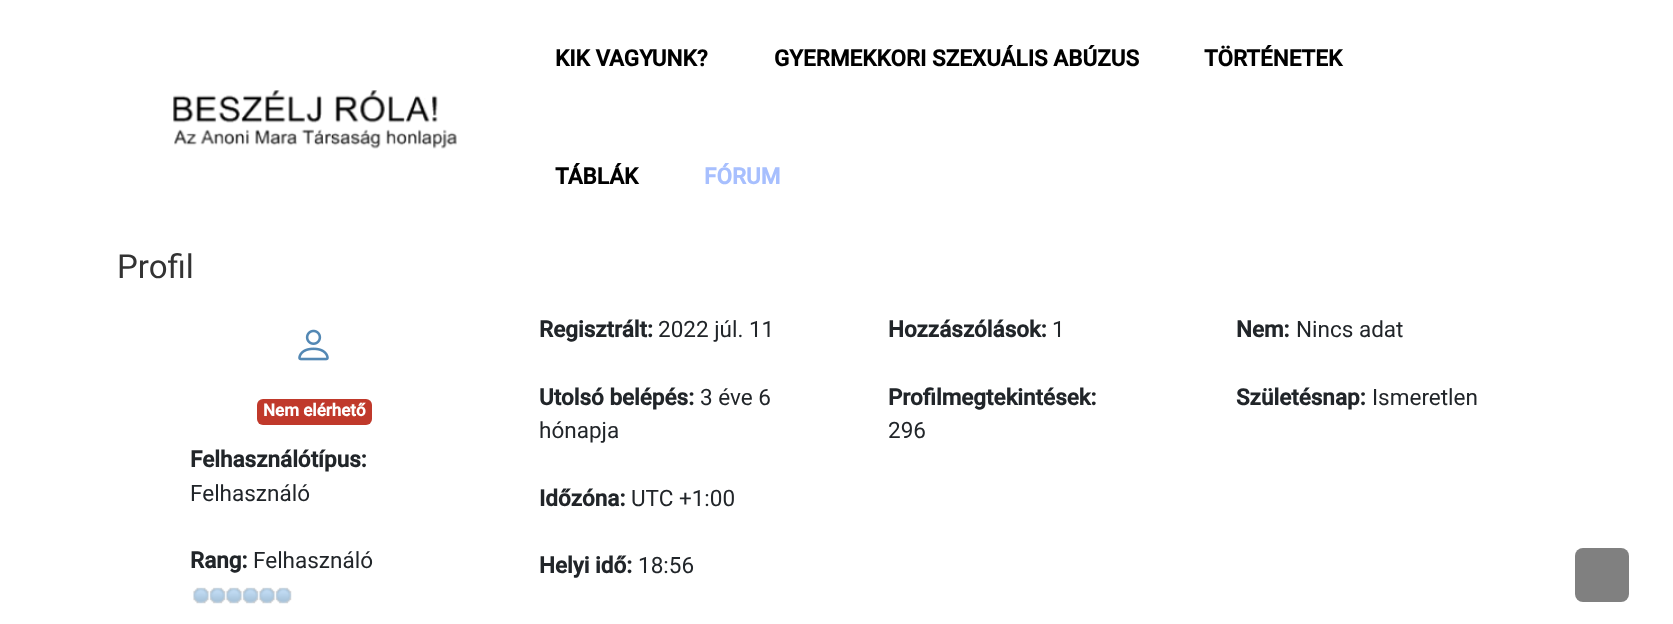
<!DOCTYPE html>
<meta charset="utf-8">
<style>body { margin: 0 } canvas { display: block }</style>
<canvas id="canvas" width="1673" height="624"></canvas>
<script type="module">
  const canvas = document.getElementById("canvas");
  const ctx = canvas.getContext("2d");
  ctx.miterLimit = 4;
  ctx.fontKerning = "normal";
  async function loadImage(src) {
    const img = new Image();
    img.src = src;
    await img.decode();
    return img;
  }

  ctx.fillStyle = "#ffffff";
  ctx.fillRect(0, 0, 1673, 624);
  ctx.drawImage(await loadImage("img1.png"), 173, 90, 284, 59);
  ctx.font = "bold 22.5px Roboto";
  ctx.fillStyle = "#000000";
  ctx.fillText("KIK VAGYUNK?", 555, 66);
  ctx.fillText("GYERMEKKORI SZEXUÁLIS ABÚZUS", 774, 66);
  ctx.fillText("TÖRTÉNETEK", 1204, 66);
  ctx.fillText("TÁBLÁK", 555, 184);
  ctx.fillStyle = "#a7bffe";
  ctx.fillText("FÓRUM", 704, 184);
  ctx.font = "33px Roboto";
  ctx.fillStyle = "#333333";
  ctx.fillText("Profil", 117, 278);
  ctx.font = "bold 22.5px Roboto";
  ctx.fillStyle = "#212529";
  ctx.fillText("Regisztrált:", 539, 337);
  ctx.font = "22.5px Roboto";
  ctx.fillText("2022 júl. 11", 658, 337);
  ctx.font = "bold 22.5px Roboto";
  ctx.fillText("Utolsó belépés:", 539, 405);
  ctx.font = "22.5px Roboto";
  ctx.fillText("3 éve 6", 700, 405);
  ctx.fillText("hónapja", 539, 438);
  ctx.font = "bold 22.5px Roboto";
  ctx.fillText("Időzóna:", 539, 506);
  ctx.font = "22.5px Roboto";
  ctx.fillText("UTC +1:00", 631, 506);
  ctx.font = "bold 22.5px Roboto";
  ctx.fillText("Helyi idő:", 539, 573);
  ctx.font = "22.5px Roboto";
  ctx.fillText("18:56", 638, 573);
  ctx.font = "bold 22.5px Roboto";
  ctx.fillText("Hozzászólások:", 888, 337);
  ctx.font = "22.5px Roboto";
  ctx.fillText("1", 1052, 337);
  ctx.font = "bold 22.5px Roboto";
  ctx.fillText("Profilmegtekintések:", 888, 405);
  ctx.font = "22.5px Roboto";
  ctx.fillText("296", 888, 438);
  ctx.font = "bold 22.5px Roboto";
  ctx.fillText("Nem:", 1236, 337);
  ctx.font = "22.5px Roboto";
  ctx.fillText("Nincs adat", 1296, 337);
  ctx.font = "bold 22.5px Roboto";
  ctx.fillText("Születésnap:", 1236, 405);
  ctx.font = "22.5px Roboto";
  ctx.fillText("Ismeretlen", 1372, 405);
  ctx.drawImage(await loadImage("img2.png"), 298, 329, 31, 32);
  ctx.fillStyle = "#c0392b";
  ctx.beginPath();
  ctx.roundRect(257, 399, 115, 26, 6);
  ctx.fill();
  ctx.font = "bold 17px Roboto";
  ctx.fillStyle = "#ffffff";
  ctx.fillText("Nem elérhető", 263, 416);
  ctx.font = "bold 22.5px Roboto";
  ctx.fillStyle = "#212529";
  ctx.fillText("Felhasználótípus:", 190, 467);
  ctx.font = "22.5px Roboto";
  ctx.fillText("Felhasználó", 190, 501);
  ctx.font = "bold 22.5px Roboto";
  ctx.fillText("Rang:", 190, 568);
  ctx.font = "22.5px Roboto";
  ctx.fillText("Felhasználó", 253, 568);
  ctx.drawImage(await loadImage("img3.png"), 193, 587, 99, 17);
  ctx.fillStyle = "#808080";
  ctx.beginPath();
  ctx.roundRect(1575, 548, 54, 54, 8);
  ctx.fill();
</script>
